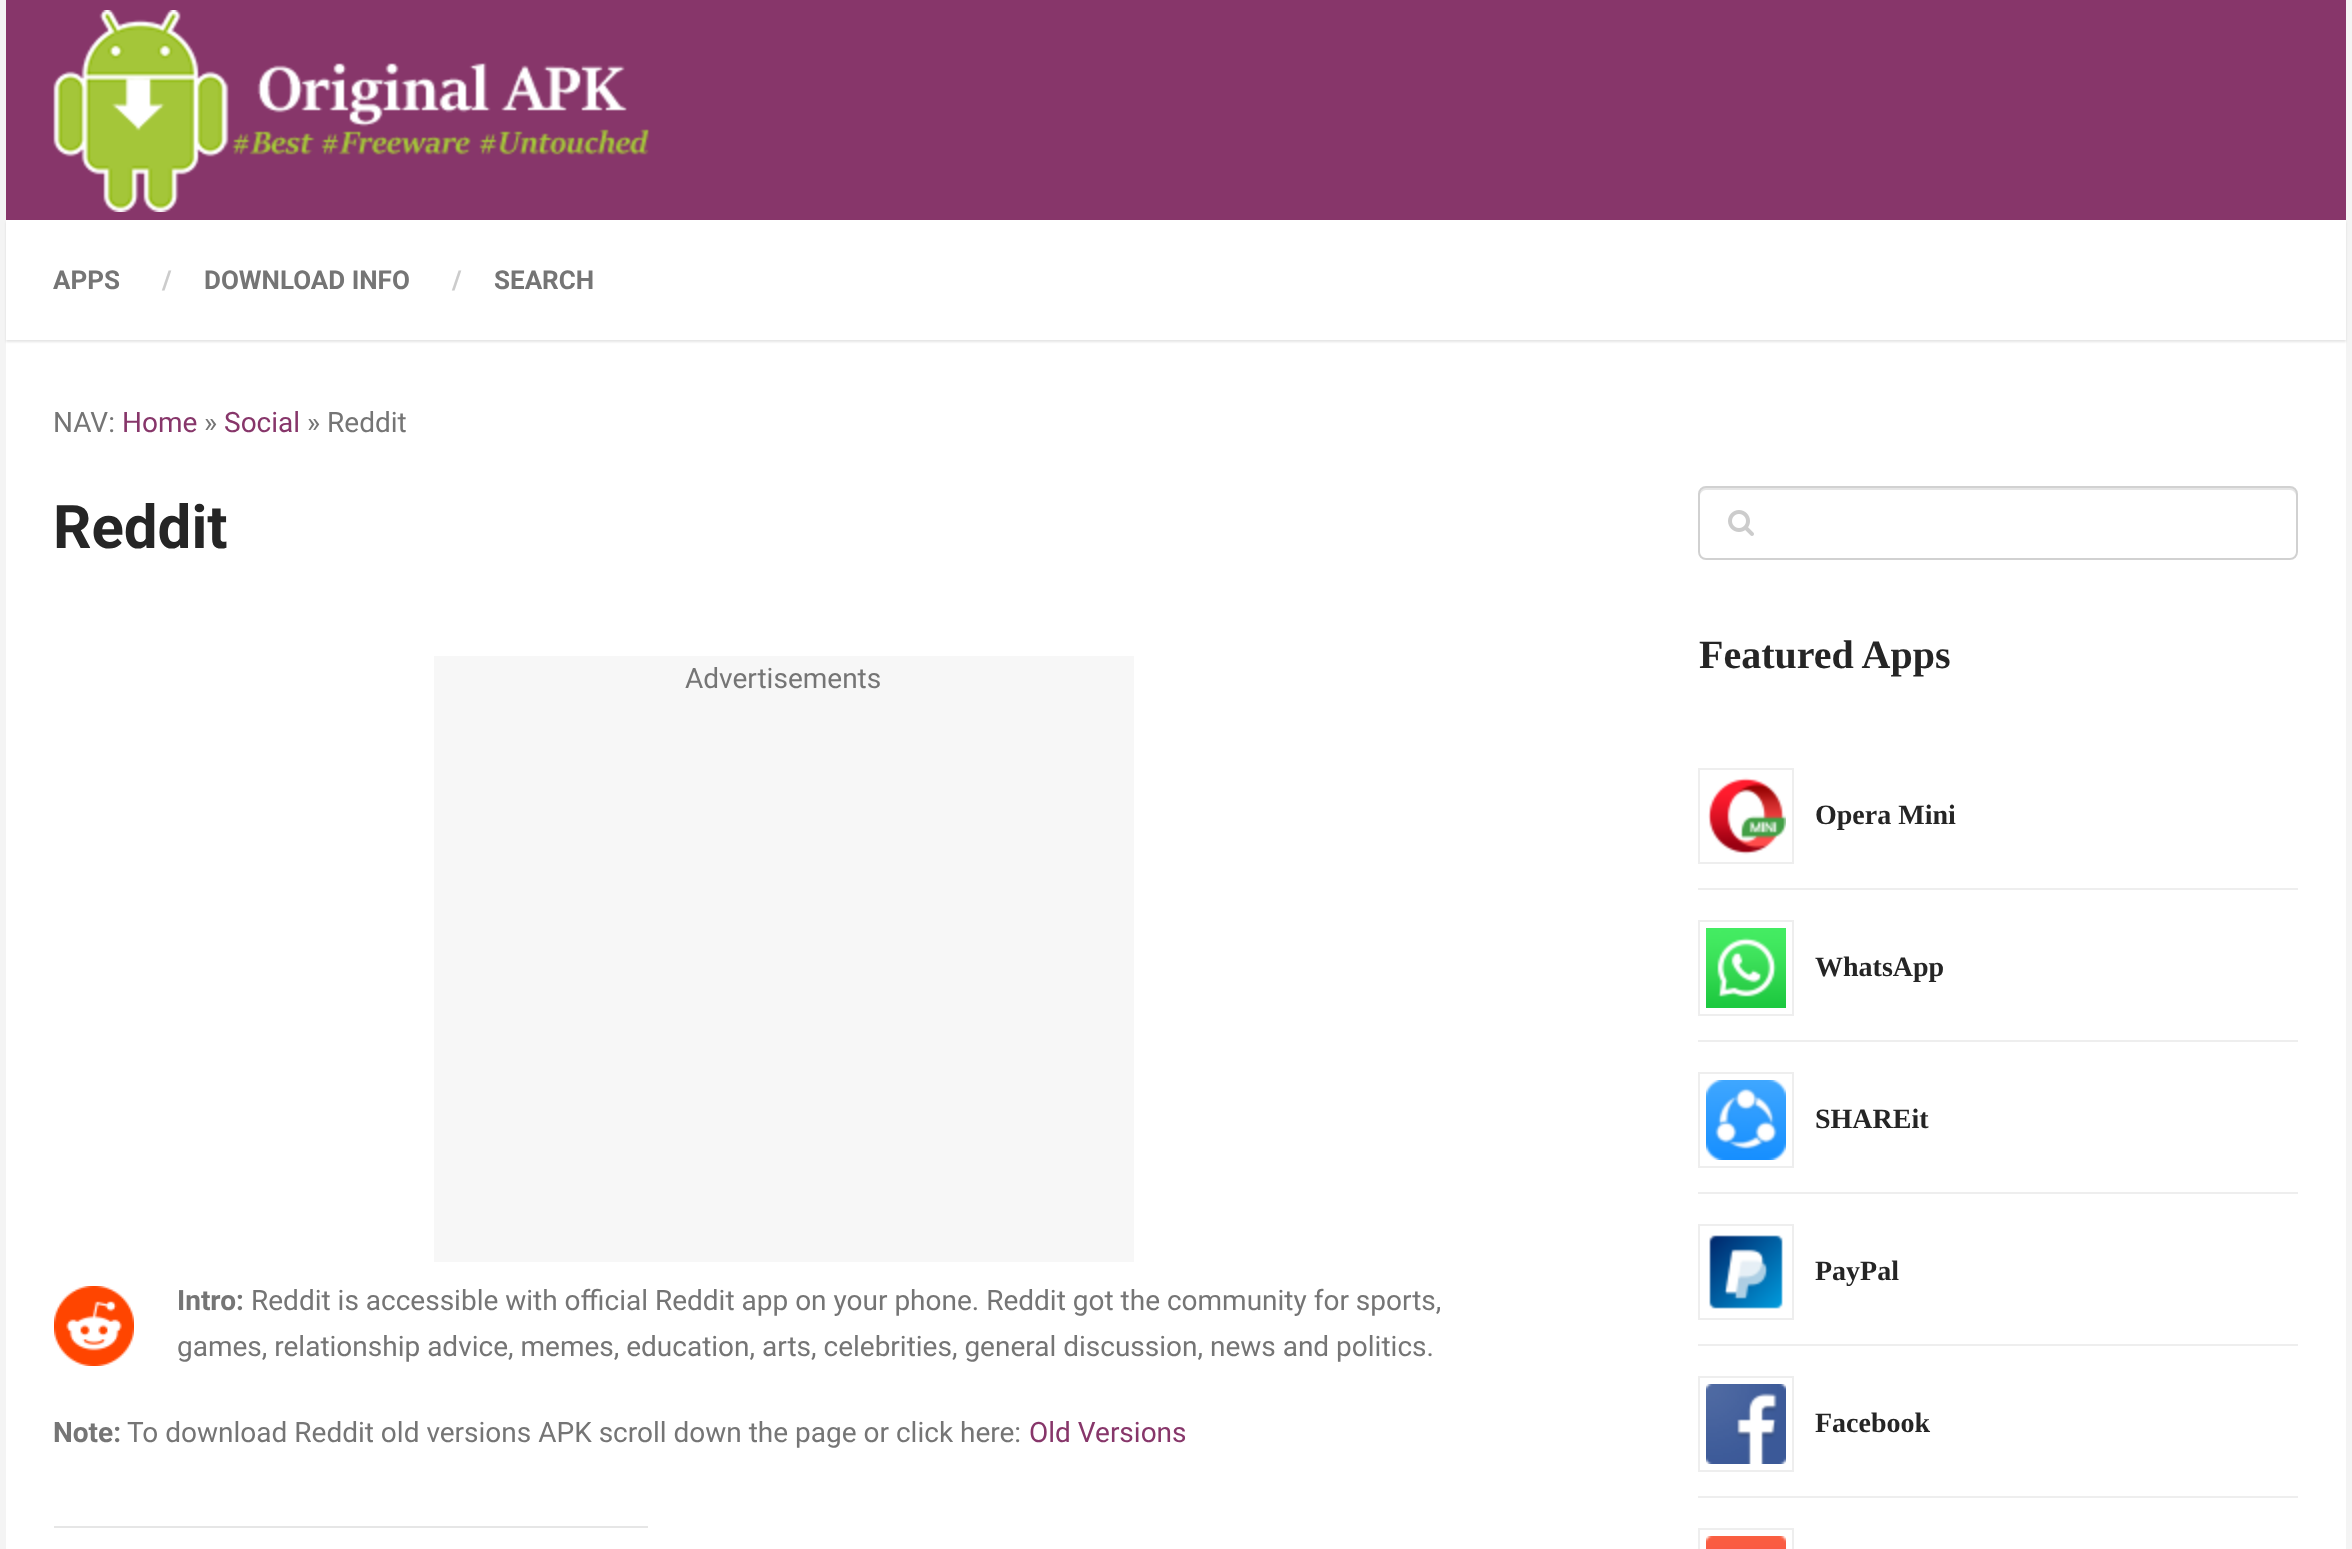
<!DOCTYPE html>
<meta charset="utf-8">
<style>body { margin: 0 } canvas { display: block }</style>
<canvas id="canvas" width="2352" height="1549"></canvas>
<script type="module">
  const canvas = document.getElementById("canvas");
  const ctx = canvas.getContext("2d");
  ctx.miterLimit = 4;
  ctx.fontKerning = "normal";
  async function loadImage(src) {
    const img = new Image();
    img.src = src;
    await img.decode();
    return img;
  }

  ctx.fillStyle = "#f4f4f4";
  ctx.fillRect(0, 0, 2352, 1549);
  ctx.fillStyle = "#87366a";
  ctx.fillRect(6, 0, 2340, 220);
  ctx.drawImage(await loadImage("img1.png"), 53, 10, 597, 202);
  ctx.fillStyle = "#ffffff";
  ctx.fillRect(6, 340, 2340, 1209);
  ctx.fillStyle = "rgba(0, 0, 0, 0.1)";
  ctx.filter = "blur(1px)";
  ctx.beginPath();
  ctx.rect(6, 222, 2340, 120);
  ctx.fill();
  ctx.filter = "none";
  ctx.fillStyle = "#ffffff";
  ctx.fillRect(6, 220, 2340, 120);
  ctx.font = "bold 26px Roboto";
  ctx.fillStyle = "#757575";
  ctx.fillText("APPS", 53, 289);
  ctx.fillStyle = "#cccccc";
  ctx.fillText("/", 162, 289);
  ctx.fillStyle = "#757575";
  ctx.fillText("DOWNLOAD INFO", 204, 289);
  ctx.fillStyle = "#cccccc";
  ctx.fillText("/", 452, 289);
  ctx.fillStyle = "#757575";
  ctx.fillText("SEARCH", 494, 289);
  ctx.font = "28px Roboto";
  ctx.fillText("NAV:", 53, 432);
  ctx.fillStyle = "#87366a";
  ctx.fillText("Home", 122, 432);
  ctx.fillStyle = "#757575";
  ctx.fillText("»", 204, 432);
  ctx.fillStyle = "#87366a";
  ctx.fillText("Social", 224, 432);
  ctx.fillStyle = "#757575";
  ctx.fillText("» Reddit", 307, 432);
  ctx.font = "bold 60px Roboto";
  ctx.fillStyle = "#252525";
  ctx.fillText("Reddit", 53, 548);
  ctx.fillStyle = "#f7f7f7";
  ctx.fillRect(434, 656, 700, 606);
  ctx.font = "28px Roboto";
  ctx.fillStyle = "#757575";
  ctx.fillText("Advertisements", 685, 688);
  ctx.drawImage(await loadImage("img2.png"), 54, 1286, 80, 80);
  ctx.font = "bold 28px Roboto";
  ctx.fillText("Intro:", 177, 1310);
  ctx.font = "28px Roboto";
  ctx.fillText("Reddit is accessible with official Reddit app on your phone. Reddit got the community for sports,", 251, 1310);
  ctx.fillText("games, relationship advice, memes, education, arts, celebrities, general discussion, news and politics.", 177, 1356);
  ctx.font = "bold 28px Roboto";
  ctx.fillText("Note:", 53, 1442);
  ctx.font = "28px Roboto";
  ctx.fillText("To download Reddit old versions APK scroll down the page or click here:", 127, 1442);
  ctx.fillStyle = "#87366a";
  ctx.fillText("Old Versions", 1029, 1442);
  ctx.fillStyle = "#e6e6e6";
  ctx.fillRect(54, 1526, 594, 2);
  ctx.beginPath();
  ctx.moveTo(1706, 490);
  ctx.lineTo(2290, 490);
  ctx.bezierCurveTo(2293, 490, 2296, 493, 2296, 496);
  ctx.lineTo(2296, 494);
  ctx.bezierCurveTo(2296, 491, 2293, 488, 2290, 488);
  ctx.lineTo(1706, 488);
  ctx.bezierCurveTo(1703, 488, 1700, 491, 1700, 494);
  ctx.lineTo(1700, 496);
  ctx.bezierCurveTo(1700, 493, 1703, 490, 1706, 490);
  ctx.closePath();
  ctx.fill();
  ctx.beginPath();
  ctx.roundRect(1699, 487, 598, 72, 7);
  ctx.strokeStyle = "rgba(0, 0, 0, 0.18)";
  ctx.lineWidth = 2;
  ctx.stroke();
  ctx.drawImage(await loadImage("img3.png"), 1728, 510, 26, 26);
  ctx.font = "bold 40px Liberation Serif";
  ctx.fillStyle = "#252525";
  ctx.fillText("Featured Apps", 1699, 668);
  ctx.fillStyle = "#eeeeee";
  ctx.fillRect(1698, 888, 600, 2);
  ctx.strokeStyle = "#eeeeee";
  ctx.strokeRect(1699, 769, 94, 94);
  ctx.drawImage(await loadImage("img4.png"), 1708, 777, 78, 78);
  ctx.font = "bold 28px Liberation Serif";
  ctx.fillStyle = "#252525";
  ctx.fillText("Opera Mini", 1815, 824);
  ctx.fillStyle = "#eeeeee";
  ctx.fillRect(1698, 1040, 600, 2);
  ctx.strokeRect(1699, 921, 94, 94);
  ctx.drawImage(await loadImage("img5.png"), 1706, 928, 80, 80);
  ctx.fillStyle = "#252525";
  ctx.fillText("WhatsApp", 1815, 976);
  ctx.fillStyle = "#eeeeee";
  ctx.fillRect(1698, 1192, 600, 2);
  ctx.strokeRect(1699, 1073, 94, 94);
  ctx.drawImage(await loadImage("img6.png"), 1706, 1080, 80, 80);
  ctx.fillStyle = "#252525";
  ctx.fillText("SHAREit", 1815, 1128);
  ctx.fillStyle = "#eeeeee";
  ctx.fillRect(1698, 1344, 600, 2);
  ctx.strokeRect(1699, 1225, 94, 94);
  ctx.drawImage(await loadImage("img7.png"), 1709, 1235, 74, 74);
  ctx.fillStyle = "#252525";
  ctx.fillText("PayPal", 1815, 1280);
  ctx.fillStyle = "#eeeeee";
  ctx.fillRect(1698, 1496, 600, 2);
  ctx.strokeRect(1699, 1377, 94, 94);
  ctx.drawImage(await loadImage("img8.png"), 1706, 1384, 80, 80);
  ctx.fillStyle = "#252525";
  ctx.fillText("Facebook", 1815, 1432);
  ctx.strokeRect(1699, 1529, 94, 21);
  ctx.drawImage(await loadImage("img9.png"), 1706, 1536, 80, 13);
</script>
